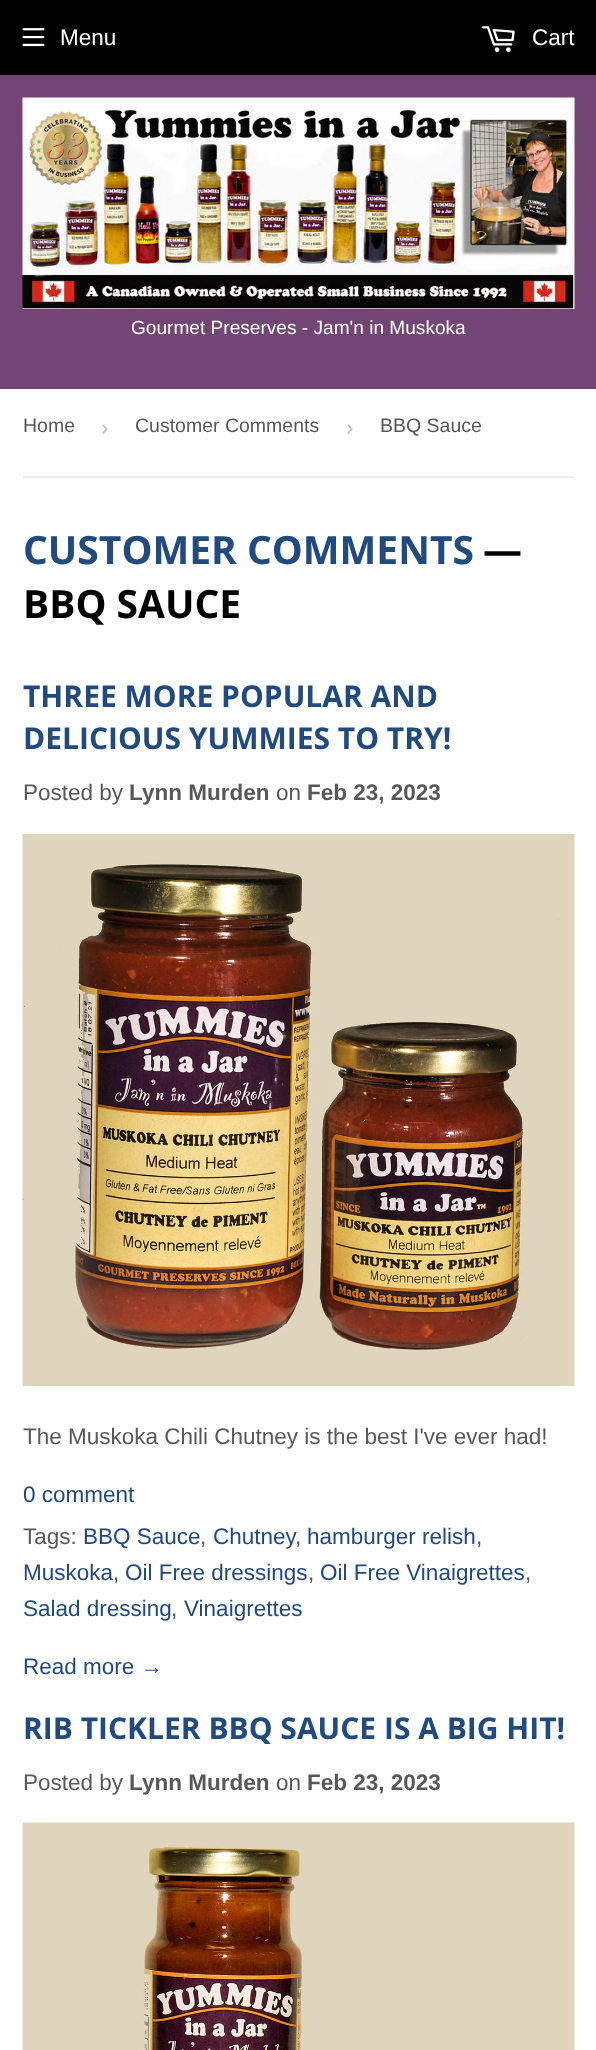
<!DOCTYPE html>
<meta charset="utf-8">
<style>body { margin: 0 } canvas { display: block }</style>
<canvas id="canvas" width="596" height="2050"></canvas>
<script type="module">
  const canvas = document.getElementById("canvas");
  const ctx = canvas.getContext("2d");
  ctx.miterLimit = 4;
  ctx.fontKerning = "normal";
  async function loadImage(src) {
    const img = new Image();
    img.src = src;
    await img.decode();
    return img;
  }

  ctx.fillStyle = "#ffffff";
  ctx.fillRect(0, 0, 596, 2050);
  ctx.fillStyle = "#000000";
  ctx.fillRect(0, 0, 596, 75);
  ctx.drawImage(await loadImage("img1.png"), 22, 28, 23, 19);
  ctx.font = "22.5px Liberation Sans";
  ctx.fillStyle = "#ffffff";
  ctx.fillText("Menu", 60, 45);
  ctx.drawImage(await loadImage("img2.png"), 481, 26, 34, 26);
  ctx.fillText("Cart", 532, 45);
  ctx.fillStyle = "#724574";
  ctx.fillRect(0, 75, 596, 314);
  ctx.drawImage(await loadImage("img3.png"), 22, 97, 553, 212);
  ctx.font = "19.1px Liberation Sans";
  ctx.fillStyle = "#ffffff";
  ctx.fillText("Gourmet Preserves - Jam'n in Muskoka", 131, 334);
  ctx.fillStyle = "#ececec";
  ctx.fillRect(23, 476, 552, 2);
  ctx.font = "19.5px Liberation Sans";
  ctx.fillStyle = "#585858";
  ctx.fillText("Home", 23, 432);
  ctx.font = "22.5px Liberation Sans";
  ctx.fillStyle = "#bbbbbb";
  ctx.fillText("›", 101, 435);
  ctx.font = "19.5px Liberation Sans";
  ctx.fillStyle = "#585858";
  ctx.fillText("Customer Comments", 135, 432);
  ctx.font = "22.5px Liberation Sans";
  ctx.fillStyle = "#bbbbbb";
  ctx.fillText("›", 346, 435);
  ctx.font = "19.5px Liberation Sans";
  ctx.fillStyle = "#585858";
  ctx.fillText("BBQ Sauce", 380, 432);
  ctx.font = "bold 39px Open Sans";
  ctx.fillStyle = "#204a80";
  ctx.fillText("CUSTOMER COMMENTS", 23, 564);
  ctx.fillStyle = "#000000";
  ctx.fillText("—", 483, 564);
  ctx.fillText("BBQ SAUCE", 23, 618);
  ctx.font = "bold 30px Open Sans";
  ctx.fillStyle = "#204a80";
  ctx.fillText("THREE MORE POPULAR AND", 23, 707);
  ctx.fillText("DELICIOUS YUMMIES TO TRY!", 23, 749);
  ctx.font = "22.5px Liberation Sans";
  ctx.fillStyle = "#585858";
  ctx.fillText("Posted by", 23, 800);
  ctx.font = "bold 22.5px Liberation Sans";
  ctx.fillText("Lynn Murden", 129, 800);
  ctx.font = "22.5px Liberation Sans";
  ctx.fillText("on", 276, 800);
  ctx.font = "bold 22.5px Liberation Sans";
  ctx.fillText("Feb 23, 2023", 307, 800);
  ctx.drawImage(await loadImage("img4.png"), 22, 834, 553, 552);
  ctx.font = "22.5px Liberation Sans";
  ctx.fillText("The Muskoka Chili Chutney is the best I've ever had!", 23, 1444);
  ctx.fillStyle = "#204a80";
  ctx.fillText("0 comment", 23, 1502);
  ctx.fillStyle = "#585858";
  ctx.fillText("Tags:", 23, 1544);
  ctx.fillStyle = "#204a80";
  ctx.fillText("BBQ Sauce", 83, 1544);
  ctx.fillStyle = "#585858";
  ctx.fillText(",", 200, 1544);
  ctx.fillStyle = "#204a80";
  ctx.fillText("Chutney", 213, 1544);
  ctx.fillStyle = "#585858";
  ctx.fillText(",", 295, 1544);
  ctx.fillStyle = "#204a80";
  ctx.fillText("hamburger relish", 307, 1544);
  ctx.fillStyle = "#585858";
  ctx.fillText(",", 476, 1544);
  ctx.fillStyle = "#204a80";
  ctx.fillText("Muskoka", 23, 1580);
  ctx.fillStyle = "#585858";
  ctx.fillText(",", 113, 1580);
  ctx.fillStyle = "#204a80";
  ctx.fillText("Oil Free dressings", 125, 1580);
  ctx.fillStyle = "#585858";
  ctx.fillText(",", 308, 1580);
  ctx.fillStyle = "#204a80";
  ctx.fillText("Oil Free Vinaigrettes", 320, 1580);
  ctx.fillStyle = "#585858";
  ctx.fillText(",", 525, 1580);
  ctx.fillStyle = "#204a80";
  ctx.fillText("Salad dressing", 23, 1616);
  ctx.fillStyle = "#585858";
  ctx.fillText(",", 171, 1616);
  ctx.fillStyle = "#204a80";
  ctx.fillText("Vinaigrettes", 184, 1616);
  ctx.fillText("Read more →", 23, 1674);
  ctx.font = "bold 30px Open Sans";
  ctx.fillText("RIB TICKLER BBQ SAUCE IS A BIG HIT!", 23, 1739);
  ctx.font = "22.5px Liberation Sans";
  ctx.fillStyle = "#585858";
  ctx.fillText("Posted by", 23, 1790);
  ctx.font = "bold 22.5px Liberation Sans";
  ctx.fillText("Lynn Murden", 129, 1790);
  ctx.font = "22.5px Liberation Sans";
  ctx.fillText("on", 276, 1790);
  ctx.font = "bold 22.5px Liberation Sans";
  ctx.fillText("Feb 23, 2023", 307, 1790);
  ctx.drawImage(await loadImage("img5.png"), 22, 1822, 553, 228);
</script>
